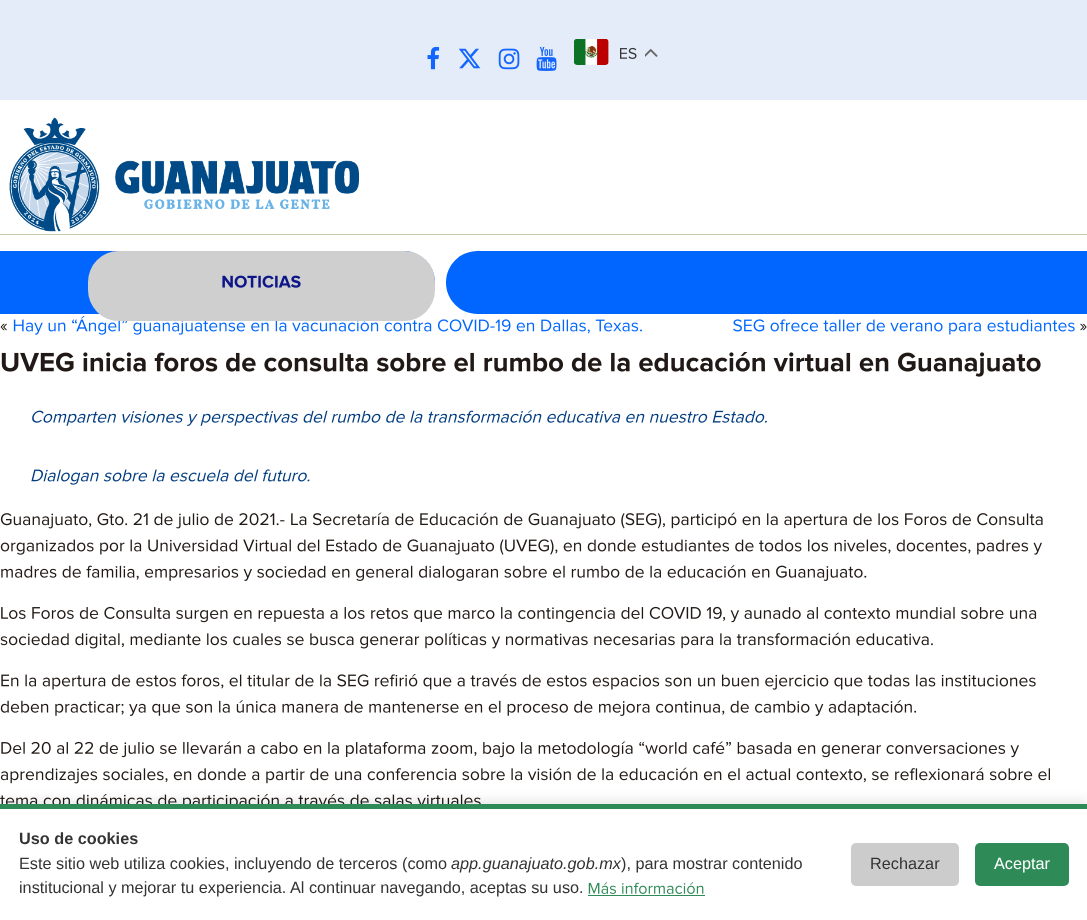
<!DOCTYPE html>
<meta charset="utf-8">
<style>body { margin: 0 } canvas { display: block }</style>
<canvas id="canvas" width="1087" height="920"></canvas>
<script type="module">
  const canvas = document.getElementById("canvas");
  const ctx = canvas.getContext("2d");
  ctx.miterLimit = 4;
  ctx.fontKerning = "normal";
  async function loadImage(src) {
    const img = new Image();
    img.src = src;
    await img.decode();
    return img;
  }

  ctx.fillStyle = "#ffffff";
  ctx.fillRect(0, 0, 1087, 920);
  ctx.fillStyle = "#e4ecfa";
  ctx.fillRect(0, 0, 1087, 100);
  ctx.drawImage(await loadImage("img1.png"), 427, 46, 13, 24);
  ctx.drawImage(await loadImage("img2.png"), 458, 48, 23, 21);
  ctx.drawImage(await loadImage("img3.png"), 498, 48, 22, 22);
  ctx.drawImage(await loadImage("img4.png"), 536, 46, 21, 25);
  ctx.drawImage(await loadImage("img5.png"), 574, 39, 35, 26);
  ctx.drawImage(await loadImage("img6.png"), 620, 47, 17, 12);
  ctx.drawImage(await loadImage("img7.png"), 645, 48, 13, 9);
  ctx.drawImage(await loadImage("img8.png"), 9, 117, 351, 115);
  ctx.fillStyle = "#c8c8aa";
  ctx.fillRect(0, 234, 1087, 1);
  ctx.fillStyle = "#0066ff";
  ctx.beginPath();
  ctx.roundRect(0, 251, 435, 63, [0, 31.5, 31.5, 0]);
  ctx.fill();
  ctx.drawImage(await loadImage("img11.png"), 13, 316, 629, 19);
  ctx.fillStyle = "#cfcfcf";
  ctx.beginPath();
  ctx.roundRect(88, 251, 347, 70, 31);
  ctx.fill();
  ctx.drawImage(await loadImage("img9.png"), 222, 275, 79, 13);
  ctx.fillStyle = "#0066ff";
  ctx.beginPath();
  ctx.moveTo(477.5, 251);
  ctx.lineTo(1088, 251);
  ctx.lineTo(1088, 314);
  ctx.lineTo(477.5, 314);
  ctx.bezierCurveTo(460, 314, 446, 300, 446, 282.5);
  ctx.bezierCurveTo(446, 265, 460, 251, 477.5, 251);
  ctx.closePath();
  ctx.fill();
  ctx.drawImage(await loadImage("img10.png"), 0, 323, 7, 8);
  ctx.drawImage(await loadImage("img12.png"), 733, 319, 342, 16);
  ctx.drawImage(await loadImage("img13.png"), 1080, 323, 7, 8);
  ctx.drawImage(await loadImage("img14.png"), 1, 352, 1040, 25);
  ctx.drawImage(await loadImage("img15.png"), 32, 410, 735, 16);
  ctx.drawImage(await loadImage("img16.png"), 31, 469, 279, 16);
  ctx.drawImage(await loadImage("img17.png"), 0, 513, 285, 16);
  ctx.drawImage(await loadImage("img18.png"), 291, 512, 752, 17);
  ctx.drawImage(await loadImage("img19.png"), 0, 539, 1042, 16);
  ctx.drawImage(await loadImage("img20.png"), 1, 565, 866, 16);
  ctx.drawImage(await loadImage("img21.png"), 1, 606, 1036, 17);
  ctx.drawImage(await loadImage("img22.png"), 0, 632, 933, 17);
  ctx.drawImage(await loadImage("img23.png"), 1, 674, 1035, 16);
  ctx.drawImage(await loadImage("img24.png"), 0, 700, 917, 16);
  ctx.drawImage(await loadImage("img25.png"), 1, 741, 1018, 17);
  ctx.drawImage(await loadImage("img26.png"), 0, 767, 1050, 17);
  ctx.drawImage(await loadImage("img27.png"), 0, 794, 481, 10);
  ctx.fillStyle = "rgba(0, 0, 0, 0.1)";
  ctx.filter = "blur(6px)";
  ctx.beginPath();
  ctx.rect(0, 801, 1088, 117);
  ctx.fill();
  ctx.filter = "none";
  ctx.fillStyle = "#ffffff";
  ctx.fillRect(0, 809, 1087, 111);
  ctx.fillStyle = "#2e8b57";
  ctx.fillRect(0, 804, 1087, 5);
  ctx.font = "bold 16.25px Liberation Sans";
  ctx.fillStyle = "#333333";
  ctx.fillText("Uso de cookies", 19, 844);
  ctx.font = "16.25px Liberation Sans";
  ctx.fillText("Este sitio web utiliza cookies, incluyendo de terceros (como", 19, 869);
  ctx.font = "italic 16.25px Liberation Sans";
  ctx.fillText("app.guanajuato.gob.mx", 451, 869);
  ctx.font = "16.25px Liberation Sans";
  ctx.fillText("), para mostrar contenido", 621, 869);
  ctx.fillText("institucional y mejorar tu experiencia. Al continuar navegando, aceptas su uso.", 19, 893);
  ctx.drawImage(await loadImage("img28.png"), 588, 882, 116, 12);
  ctx.fillStyle = "#2e8b57";
  ctx.fillRect(588, 895, 117, 1);
  ctx.fillStyle = "#cccccc";
  ctx.beginPath();
  ctx.roundRect(851, 843, 108, 43, 5);
  ctx.fill();
  ctx.fillStyle = "#333333";
  ctx.fillText("Rechazar", 870, 869);
  ctx.fillStyle = "#2e8b57";
  ctx.beginPath();
  ctx.roundRect(975, 843, 94, 43, 5);
  ctx.fill();
  ctx.fillStyle = "#ffffff";
  ctx.fillText("Aceptar", 994, 869);
</script>
